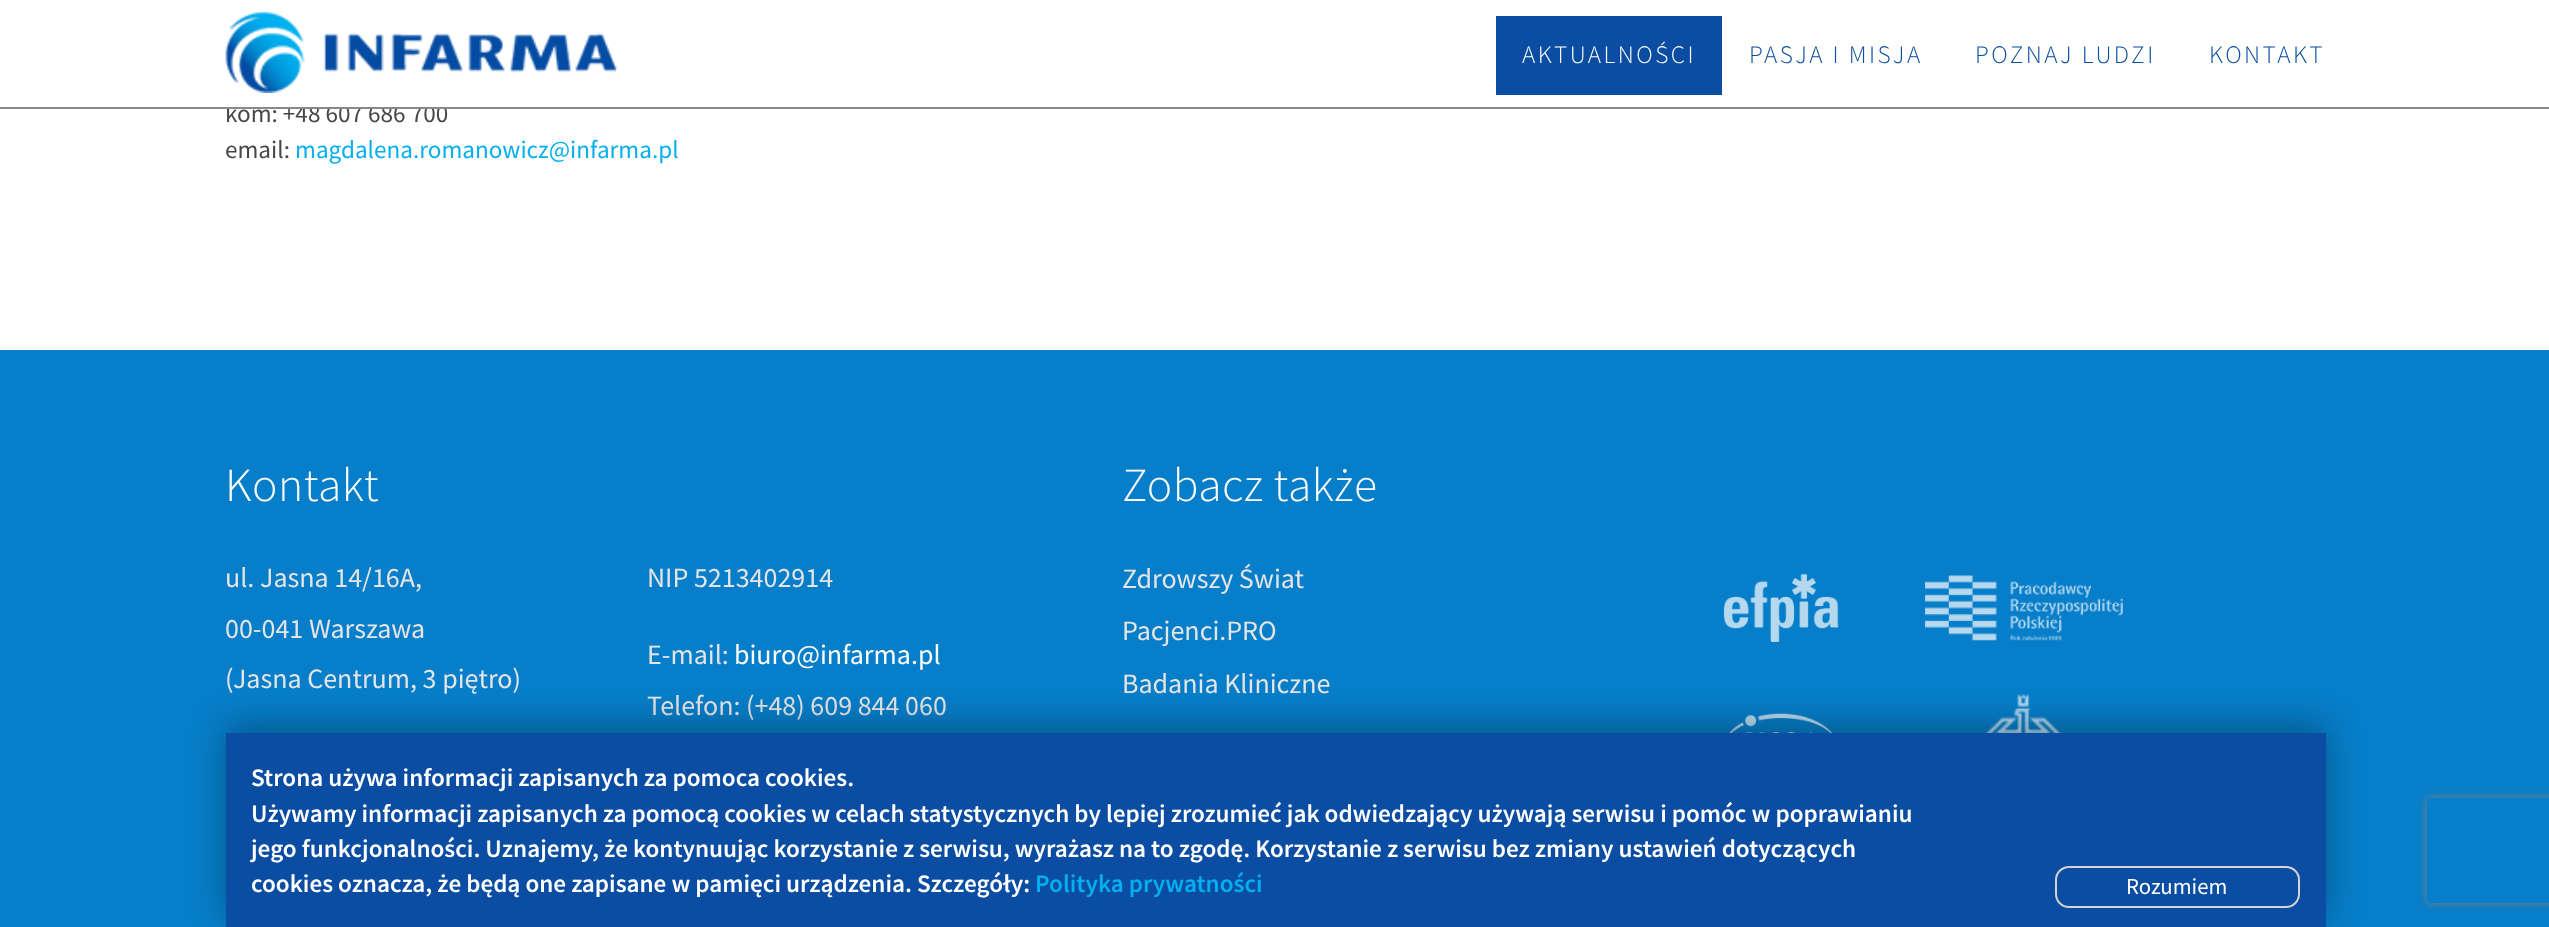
<!DOCTYPE html>
<meta charset="utf-8">
<style>body { margin: 0 } canvas { display: block }</style>
<canvas id="canvas" width="2549" height="927"></canvas>
<script type="module">
  const canvas = document.getElementById("canvas");
  const ctx = canvas.getContext("2d");
  ctx.miterLimit = 4;
  ctx.fontKerning = "normal";
  async function loadImage(src) {
    const img = new Image();
    img.src = src;
    await img.decode();
    return img;
  }

  ctx.fillStyle = "#ffffff";
  ctx.fillRect(0, 0, 2549, 927);
  ctx.font = "25.2px Source Sans Pro";
  ctx.fillStyle = "#464646";
  ctx.fillText("kom: +48 607 686 700", 225, 122);
  ctx.fillStyle = "#ffffff";
  ctx.fillRect(226, 104, 219, 3);
  ctx.fillStyle = "#898989";
  ctx.fillRect(0, 107, 2549, 2);
  ctx.drawImage(await loadImage("img1.png"), 225, 11, 392, 82);
  ctx.fillStyle = "#0a4da2";
  ctx.fillRect(1496, 16, 226, 79);
  ctx.letterSpacing = "2.5px";
  ctx.font = "300 25.2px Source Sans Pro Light";
  ctx.fillStyle = "#ffffff";
  ctx.fillText("AKTUALNOŚCI", 1522, 63);
  ctx.fillStyle = "#0a4da2";
  ctx.fillText("PASJA I MISJA", 1749, 63);
  ctx.fillText("POZNAJ LUDZI", 1975, 63);
  ctx.fillText("KONTAKT", 2209, 63);
  ctx.letterSpacing = "0px";
  ctx.font = "25.2px Source Sans Pro";
  ctx.fillStyle = "#464646";
  ctx.fillText("email:", 225, 158);
  ctx.fillStyle = "#03afef";
  ctx.fillText("magdalena.romanowicz@infarma.pl", 295, 158);
  ctx.fillStyle = "#077ec9";
  ctx.fillRect(0, 350, 2549, 577);
  ctx.letterSpacing = "0.5px";
  ctx.font = "300 47.5px Source Sans Pro Light";
  ctx.fillStyle = "#ffffff";
  ctx.fillText("Kontakt", 225, 501);
  ctx.letterSpacing = "0px";
  ctx.font = "28px Source Sans Pro";
  ctx.fillStyle = "#e5e5e5";
  ctx.fillText("ul. Jasna 14/16A,", 225, 587);
  ctx.fillText("00-041 Warszawa", 225, 638);
  ctx.fillText("(Jasna Centrum, 3 piętro)", 225, 688);
  ctx.fillText("NIP 5213402914", 647, 587);
  ctx.fillText("E-mail:", 647, 664);
  ctx.fillStyle = "#ffffff";
  ctx.fillText("biuro@infarma.pl", 734, 664);
  ctx.fillStyle = "#e5e5e5";
  ctx.fillText("Telefon: (+48) 609 844 060", 647, 715);
  ctx.letterSpacing = "0.5px";
  ctx.font = "300 47.5px Source Sans Pro Light";
  ctx.fillStyle = "#ffffff";
  ctx.fillText("Zobacz także", 1122, 501);
  ctx.letterSpacing = "0px";
  ctx.font = "28px Source Sans Pro";
  ctx.fillStyle = "#e5e5e5";
  ctx.fillText("Zdrowszy Świat", 1122, 588);
  ctx.fillText("Pacjenci.PRO", 1122, 640);
  ctx.fillText("Badania Kliniczne", 1122, 693);
  ctx.drawImage(await loadImage("img2.png"), 1723, 573, 116, 69);
  ctx.drawImage(await loadImage("img3.png"), 1925, 575, 198, 66);
  ctx.drawImage(await loadImage("img4.png"), 1729, 713, 103, 20);
  ctx.drawImage(await loadImage("img5.png"), 1985, 694, 77, 39);
  ctx.fillStyle = "rgba(0, 0, 0, 0.3)";
  ctx.filter = "blur(17.5px)";
  ctx.beginPath();
  ctx.rect(226, 725, 2100, 194);
  ctx.fill();
  ctx.filter = "none";
  ctx.fillStyle = "#0a4da2";
  ctx.fillRect(226, 733, 2100, 194);
  ctx.font = "600 25.2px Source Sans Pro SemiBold";
  ctx.fillStyle = "#ffffff";
  ctx.fillText("Strona używa informacji zapisanych za pomoca cookies.", 251, 786);
  ctx.fillText("Używamy informacji zapisanych za pomocą cookies w celach statystycznych by lepiej zrozumieć jak odwiedzający używają serwisu i pomóc w poprawianiu", 251, 822);
  ctx.fillText("jego funkcjonalności. Uznajemy, że kontynuując korzystanie z serwisu, wyrażasz na to zgodę. Korzystanie z serwisu bez zmiany ustawień dotyczących", 251, 857);
  ctx.fillText("cookies oznacza, że będą one zapisane w pamięci urządzenia. Szczegóły:", 251, 892);
  ctx.fillStyle = "#03afef";
  ctx.fillText("Polityka prywatności", 1035, 892);
  ctx.beginPath();
  ctx.roundRect(2056, 867, 243, 40, 13);
  ctx.strokeStyle = "#d4d4d4";
  ctx.lineWidth = 2;
  ctx.stroke();
  ctx.font = "22.75px Source Sans Pro";
  ctx.fillStyle = "#ffffff";
  ctx.fillText("Rozumiem", 2126, 894);
  ctx.save();
  ctx.beginPath();
  ctx.moveTo(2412, 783);
  ctx.lineTo(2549, 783);
  ctx.lineTo(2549, 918);
  ctx.lineTo(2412, 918);
  ctx.closePath();
  ctx.moveTo(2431, 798);
  ctx.lineTo(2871, 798);
  ctx.bezierCurveTo(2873, 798, 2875, 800, 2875, 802);
  ctx.lineTo(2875, 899);
  ctx.bezierCurveTo(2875, 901, 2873, 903, 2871, 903);
  ctx.lineTo(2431, 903);
  ctx.bezierCurveTo(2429, 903, 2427, 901, 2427, 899);
  ctx.lineTo(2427, 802);
  ctx.bezierCurveTo(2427, 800, 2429, 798, 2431, 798);
  ctx.closePath();
  ctx.clip("evenodd");
  ctx.fillStyle = "#808080";
  ctx.filter = "blur(4.5px)";
  ctx.beginPath();
  ctx.roundRect(2427, 798, 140, 105, 4);
  ctx.fill();
  ctx.filter = "none";
  ctx.restore();
</script>
